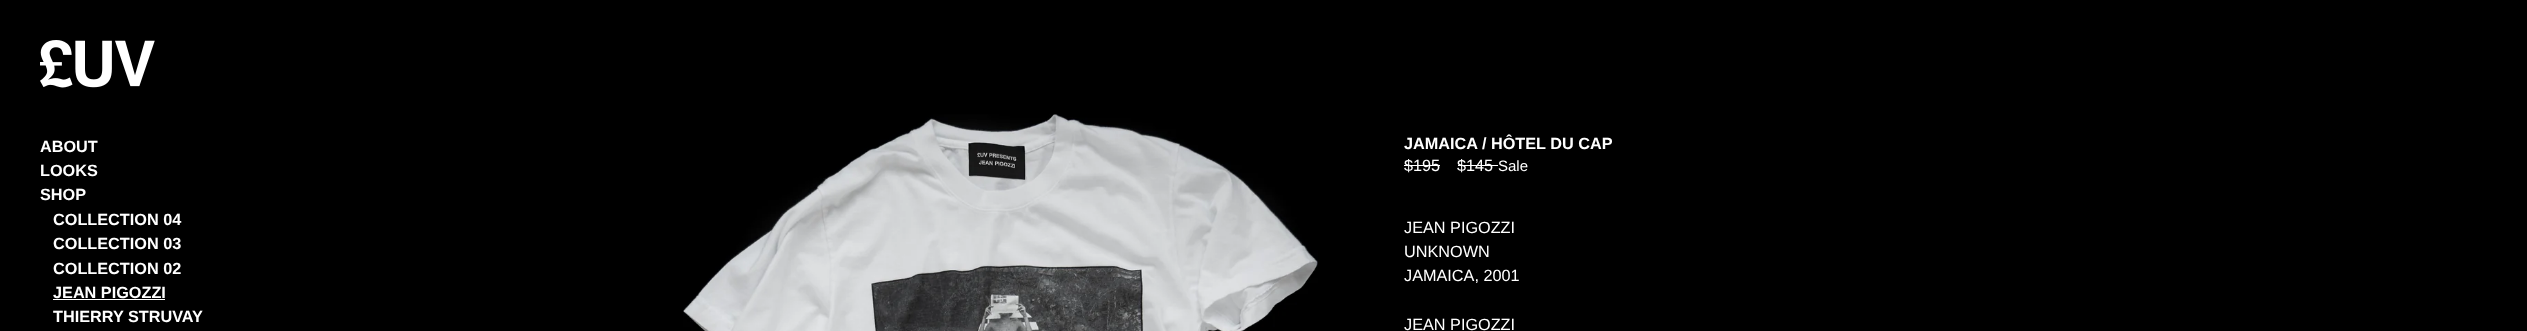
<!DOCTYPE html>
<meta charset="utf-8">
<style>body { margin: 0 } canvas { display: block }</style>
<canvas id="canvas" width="2527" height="331"></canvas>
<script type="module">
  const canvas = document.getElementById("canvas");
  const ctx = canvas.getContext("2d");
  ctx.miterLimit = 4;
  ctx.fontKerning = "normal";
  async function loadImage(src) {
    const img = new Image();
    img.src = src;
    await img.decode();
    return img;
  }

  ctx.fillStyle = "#000000";
  ctx.fillRect(0, 0, 2527, 331);
  ctx.drawImage(await loadImage("img1.png"), 40, 40, 115, 48);
  ctx.font = "bold 16.25px Liberation Sans";
  ctx.fillStyle = "#ffffff";
  ctx.fillText("ABOUT", 40, 152);
  ctx.fillText("LOOKS", 40, 176);
  ctx.fillText("SHOP", 40, 200);
  ctx.fillText("COLLECTION 04", 53, 225);
  ctx.fillText("COLLECTION 03", 53, 249);
  ctx.fillText("COLLECTION 02", 53, 274);
  ctx.fillText("JEAN PIGOZZI", 53, 298);
  ctx.fillRect(53, 299, 112, 1);
  ctx.fillText("THIERRY STRUVAY", 53, 322);
  ctx.drawImage(await loadImage("img2.png"), 683, 114, 635, 217);
  ctx.fillText("JAMAICA / HÔTEL DU CAP", 1404, 149);
  ctx.font = "16.25px Liberation Sans";
  ctx.fillText("$195", 1404, 171);
  ctx.fillRect(1404, 165, 36, 1);
  ctx.fillText("$145", 1457, 171);
  ctx.fillRect(1458, 165, 40, 1);
  ctx.font = "15px Liberation Sans";
  ctx.fillText("Sale", 1498, 171);
  ctx.font = "16.25px Liberation Sans";
  ctx.fillText("JEAN PIGOZZI", 1404, 233);
  ctx.fillText("UNKNOWN", 1404, 257);
  ctx.fillText("JAMAICA, 2001", 1404, 281);
  ctx.fillText("JEAN PIGOZZI", 1404, 330);
</script>
